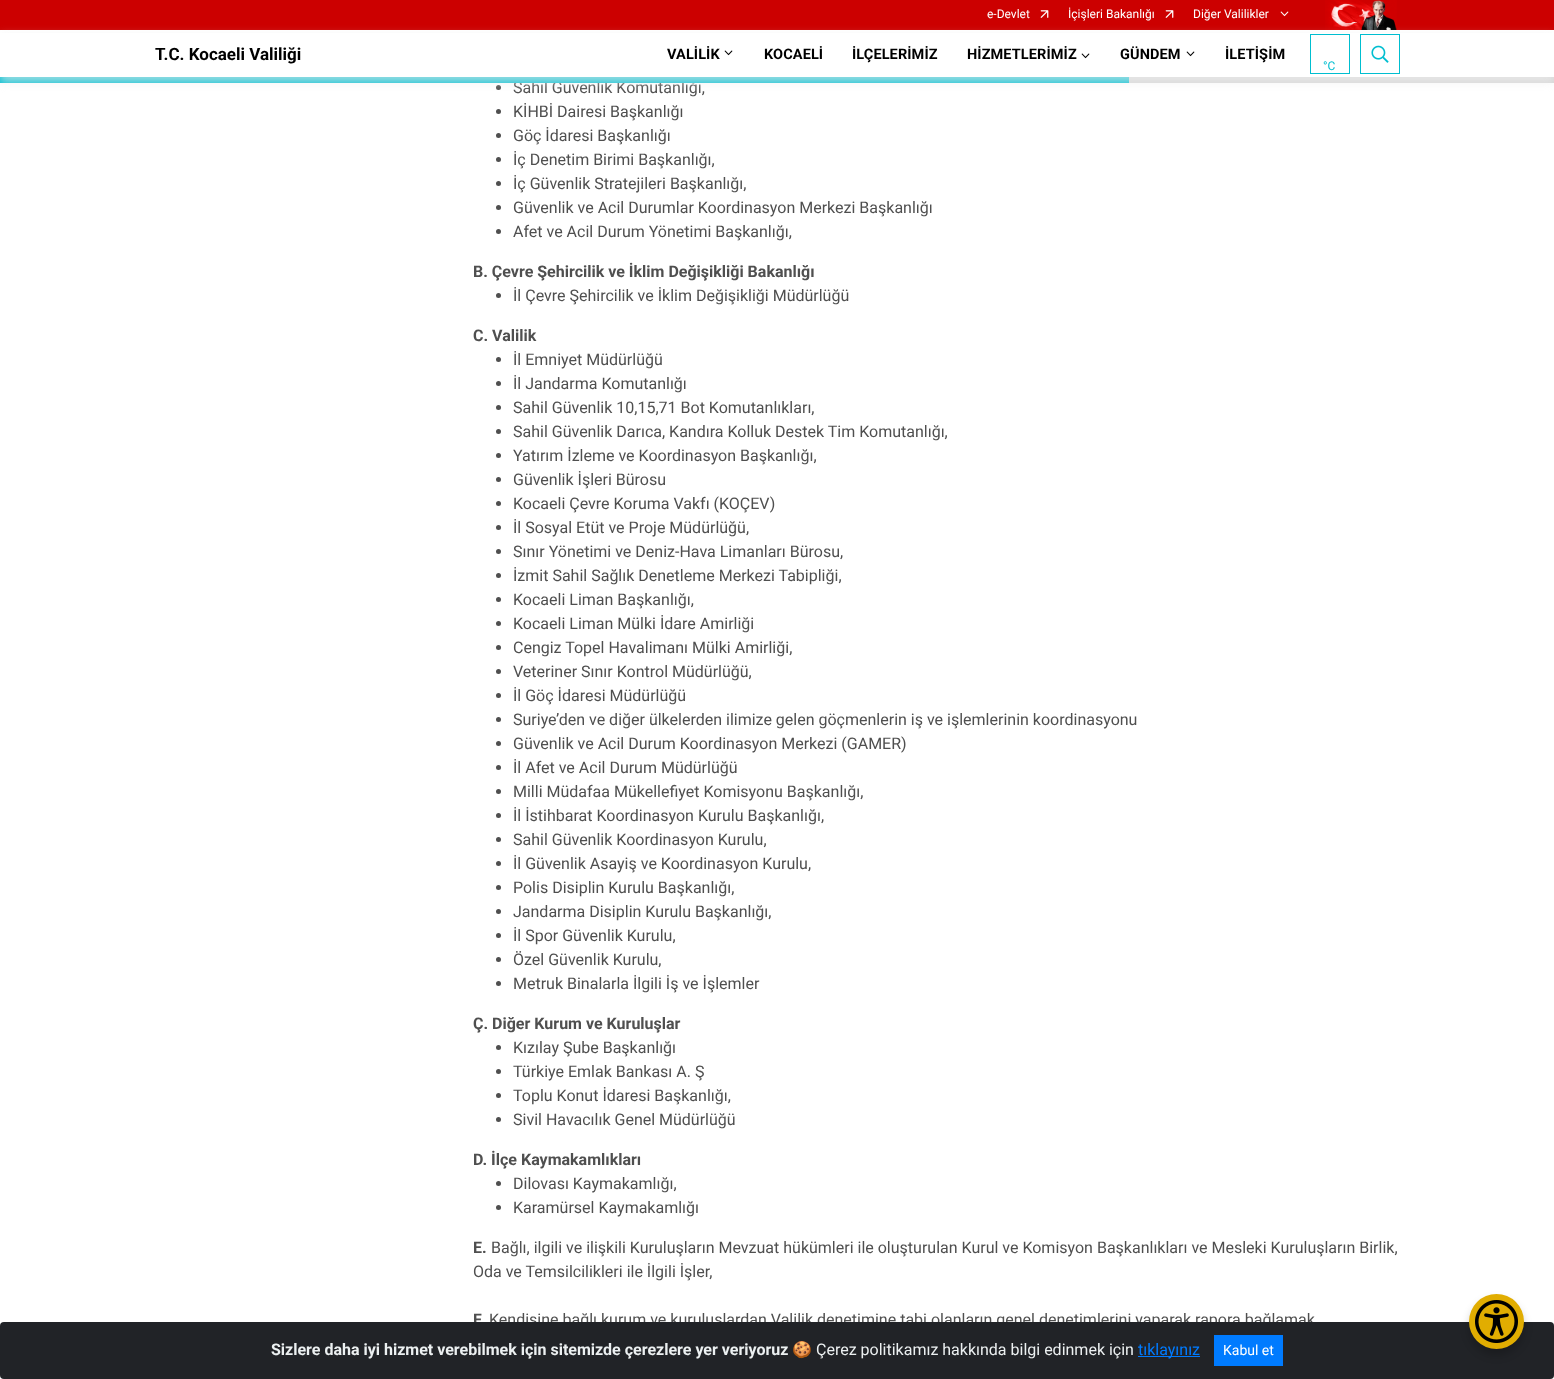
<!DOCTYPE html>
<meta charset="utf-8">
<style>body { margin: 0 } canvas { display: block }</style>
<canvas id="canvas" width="1554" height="1379"></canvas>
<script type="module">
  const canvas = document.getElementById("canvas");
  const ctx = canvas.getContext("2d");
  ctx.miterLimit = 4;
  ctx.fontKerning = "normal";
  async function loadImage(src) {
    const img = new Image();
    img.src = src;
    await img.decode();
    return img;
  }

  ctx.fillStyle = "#ffffff";
  ctx.fillRect(0, 0, 1554, 1379);
  ctx.fillStyle = "#cc0000";
  ctx.fillRect(0, 0, 1554, 30);
  ctx.font = "12px Roboto";
  ctx.fillStyle = "#ffffff";
  ctx.fillText("e-Devlet", 987, 18);
  ctx.drawImage(await loadImage("img1.png"), 1040, 10, 9, 8);
  ctx.fillText("İçişleri Bakanlığı", 1068, 18);
  ctx.drawImage(await loadImage("img1.png"), 1165, 10, 9, 8);
  ctx.fillText("Diğer Valilikler", 1193, 18);
  ctx.drawImage(await loadImage("img2.png"), 1280, 11, 9, 6);
  ctx.drawImage(await loadImage("img3.png"), 1325, 0, 72, 30);
  ctx.fillStyle = "#d7d7d7";
  ctx.fillRect(1129, 77, 425, 6);
  ctx.font = "16px Roboto";
  ctx.fillStyle = "#4f4f4f";
  ctx.fillText("Sahil Güvenlik Komutanlığı,", 513, 93);
  ctx.fillStyle = "#00bed0";
  ctx.fillRect(0, 77, 1129, 6);
  ctx.fillStyle = "#4f4f4f";
  ctx.beginPath();
  ctx.arc(498.5, 87.5, 2.5, 0, Math.PI * 2);
  ctx.fill();
  ctx.fillStyle = "rgba(238, 238, 238, 0.62)";
  ctx.filter = "blur(5px)";
  ctx.beginPath();
  ctx.rect(0, 36, 1554, 47);
  ctx.fill();
  ctx.filter = "none";
  ctx.fillStyle = "#ffffff";
  ctx.fillRect(0, 33, 1554, 44);
  ctx.font = "bold 17px Roboto";
  ctx.fillStyle = "#000000";
  ctx.fillText("T.C. Kocaeli Valiliği", 155, 60);
  ctx.letterSpacing = "0.1px";
  ctx.font = "bold 14.5px Roboto";
  ctx.fillText("VALİLİK", 667, 59);
  ctx.drawImage(await loadImage("img4.png"), 724, 50, 9, 6);
  ctx.fillText("KOCAELİ", 764, 59);
  ctx.fillText("İLÇELERİMİZ", 852, 59);
  ctx.fillText("HİZMETLERİMİZ", 967, 59);
  ctx.drawImage(await loadImage("img4.png"), 1081, 53, 9, 6);
  ctx.fillText("GÜNDEM", 1120, 59);
  ctx.drawImage(await loadImage("img4.png"), 1186, 51, 9, 6);
  ctx.fillText("İLETİŞİM", 1225, 59);
  ctx.strokeStyle = "#00bed0";
  ctx.strokeRect(1310.5, 34.5, 39, 39);
  ctx.letterSpacing = "0px";
  ctx.font = "12px Roboto";
  ctx.fillStyle = "#00bed0";
  ctx.fillText("°C", 1323, 70);
  ctx.strokeRect(1360.5, 34.5, 39, 39);
  ctx.drawImage(await loadImage("img5.png"), 1371, 45, 18, 18);
  ctx.fillStyle = "#4f4f4f";
  ctx.beginPath();
  ctx.arc(498.5, 111.5, 2.5, 0, Math.PI * 2);
  ctx.fill();
  ctx.font = "16px Roboto";
  ctx.fillText("KİHBİ Dairesi Başkanlığı", 513, 117);
  ctx.beginPath();
  ctx.arc(498.5, 135.5, 2.5, 0, Math.PI * 2);
  ctx.fill();
  ctx.fillText("Göç İdaresi Başkanlığı", 513, 141);
  ctx.beginPath();
  ctx.arc(498.5, 159.5, 2.5, 0, Math.PI * 2);
  ctx.fill();
  ctx.fillText("İç Denetim Birimi Başkanlığı,", 513, 165);
  ctx.beginPath();
  ctx.arc(498.5, 183.5, 2.5, 0, Math.PI * 2);
  ctx.fill();
  ctx.fillText("İç Güvenlik Stratejileri Başkanlığı,", 513, 189);
  ctx.beginPath();
  ctx.arc(498.5, 207.5, 2.5, 0, Math.PI * 2);
  ctx.fill();
  ctx.fillText("Güvenlik ve Acil Durumlar Koordinasyon Merkezi Başkanlığı", 513, 213);
  ctx.beginPath();
  ctx.arc(498.5, 231.5, 2.5, 0, Math.PI * 2);
  ctx.fill();
  ctx.fillText("Afet ve Acil Durum Yönetimi Başkanlığı,", 513, 237);
  ctx.font = "bold 16px Roboto";
  ctx.fillText("B. Çevre Şehircilik ve İklim Değişikliği Bakanlığı", 473, 277);
  ctx.beginPath();
  ctx.arc(498.5, 295.5, 2.5, 0, Math.PI * 2);
  ctx.fill();
  ctx.font = "16px Roboto";
  ctx.fillText("İl Çevre Şehircilik ve İklim Değişikliği Müdürlüğü", 513, 301);
  ctx.font = "bold 16px Roboto";
  ctx.fillText("C. Valilik", 473, 341);
  ctx.beginPath();
  ctx.arc(498.5, 359.5, 2.5, 0, Math.PI * 2);
  ctx.fill();
  ctx.font = "16px Roboto";
  ctx.fillText("İl Emniyet Müdürlüğü", 513, 365);
  ctx.beginPath();
  ctx.arc(498.5, 383.5, 2.5, 0, Math.PI * 2);
  ctx.fill();
  ctx.fillText("İl Jandarma Komutanlığı", 513, 389);
  ctx.beginPath();
  ctx.arc(498.5, 407.5, 2.5, 0, Math.PI * 2);
  ctx.fill();
  ctx.fillText("Sahil Güvenlik 10,15,71 Bot Komutanlıkları,", 513, 413);
  ctx.beginPath();
  ctx.arc(498.5, 431.5, 2.5, 0, Math.PI * 2);
  ctx.fill();
  ctx.fillText("Sahil Güvenlik Darıca, Kandıra Kolluk Destek Tim Komutanlığı,", 513, 437);
  ctx.beginPath();
  ctx.arc(498.5, 455.5, 2.5, 0, Math.PI * 2);
  ctx.fill();
  ctx.fillText("Yatırım İzleme ve Koordinasyon Başkanlığı,", 513, 461);
  ctx.beginPath();
  ctx.arc(498.5, 479.5, 2.5, 0, Math.PI * 2);
  ctx.fill();
  ctx.fillText("Güvenlik İşleri Bürosu", 513, 485);
  ctx.beginPath();
  ctx.arc(498.5, 503.5, 2.5, 0, Math.PI * 2);
  ctx.fill();
  ctx.fillText("Kocaeli Çevre Koruma Vakfı (KOÇEV)", 513, 509);
  ctx.beginPath();
  ctx.arc(498.5, 527.5, 2.5, 0, Math.PI * 2);
  ctx.fill();
  ctx.fillText("İl Sosyal Etüt ve Proje Müdürlüğü,", 513, 533);
  ctx.beginPath();
  ctx.arc(498.5, 551.5, 2.5, 0, Math.PI * 2);
  ctx.fill();
  ctx.fillText("Sınır Yönetimi ve Deniz-Hava Limanları Bürosu,", 513, 557);
  ctx.beginPath();
  ctx.arc(498.5, 575.5, 2.5, 0, Math.PI * 2);
  ctx.fill();
  ctx.fillText("İzmit Sahil Sağlık Denetleme Merkezi Tabipliği,", 513, 581);
  ctx.beginPath();
  ctx.arc(498.5, 599.5, 2.5, 0, Math.PI * 2);
  ctx.fill();
  ctx.fillText("Kocaeli Liman Başkanlığı,", 513, 605);
  ctx.beginPath();
  ctx.arc(498.5, 623.5, 2.5, 0, Math.PI * 2);
  ctx.fill();
  ctx.fillText("Kocaeli Liman Mülki İdare Amirliği", 513, 629);
  ctx.beginPath();
  ctx.arc(498.5, 647.5, 2.5, 0, Math.PI * 2);
  ctx.fill();
  ctx.fillText("Cengiz Topel Havalimanı Mülki Amirliği,", 513, 653);
  ctx.beginPath();
  ctx.arc(498.5, 671.5, 2.5, 0, Math.PI * 2);
  ctx.fill();
  ctx.fillText("Veteriner Sınır Kontrol Müdürlüğü,", 513, 677);
  ctx.beginPath();
  ctx.arc(498.5, 695.5, 2.5, 0, Math.PI * 2);
  ctx.fill();
  ctx.fillText("İl Göç İdaresi Müdürlüğü", 513, 701);
  ctx.beginPath();
  ctx.arc(498.5, 719.5, 2.5, 0, Math.PI * 2);
  ctx.fill();
  ctx.fillText("Suriye’den ve diğer ülkelerden ilimize gelen göçmenlerin iş ve işlemlerinin koordinasyonu", 513, 725);
  ctx.beginPath();
  ctx.arc(498.5, 743.5, 2.5, 0, Math.PI * 2);
  ctx.fill();
  ctx.fillText("Güvenlik ve Acil Durum Koordinasyon Merkezi (GAMER)", 513, 749);
  ctx.beginPath();
  ctx.arc(498.5, 767.5, 2.5, 0, Math.PI * 2);
  ctx.fill();
  ctx.fillText("İl Afet ve Acil Durum Müdürlüğü", 513, 773);
  ctx.beginPath();
  ctx.arc(498.5, 791.5, 2.5, 0, Math.PI * 2);
  ctx.fill();
  ctx.fillText("Milli Müdafaa Mükellefiyet Komisyonu Başkanlığı,", 513, 797);
  ctx.beginPath();
  ctx.arc(498.5, 815.5, 2.5, 0, Math.PI * 2);
  ctx.fill();
  ctx.fillText("İl İstihbarat Koordinasyon Kurulu Başkanlığı,", 513, 821);
  ctx.beginPath();
  ctx.arc(498.5, 839.5, 2.5, 0, Math.PI * 2);
  ctx.fill();
  ctx.fillText("Sahil Güvenlik Koordinasyon Kurulu,", 513, 845);
  ctx.beginPath();
  ctx.arc(498.5, 863.5, 2.5, 0, Math.PI * 2);
  ctx.fill();
  ctx.fillText("İl Güvenlik Asayiş ve Koordinasyon Kurulu,", 513, 869);
  ctx.beginPath();
  ctx.arc(498.5, 887.5, 2.5, 0, Math.PI * 2);
  ctx.fill();
  ctx.fillText("Polis Disiplin Kurulu Başkanlığı,", 513, 893);
  ctx.beginPath();
  ctx.arc(498.5, 911.5, 2.5, 0, Math.PI * 2);
  ctx.fill();
  ctx.fillText("Jandarma Disiplin Kurulu Başkanlığı,", 513, 917);
  ctx.beginPath();
  ctx.arc(498.5, 935.5, 2.5, 0, Math.PI * 2);
  ctx.fill();
  ctx.fillText("İl Spor Güvenlik Kurulu,", 513, 941);
  ctx.beginPath();
  ctx.arc(498.5, 959.5, 2.5, 0, Math.PI * 2);
  ctx.fill();
  ctx.fillText("Özel Güvenlik Kurulu,", 513, 965);
  ctx.beginPath();
  ctx.arc(498.5, 983.5, 2.5, 0, Math.PI * 2);
  ctx.fill();
  ctx.fillText("Metruk Binalarla İlgili İş ve İşlemler", 513, 989);
  ctx.font = "bold 16px Roboto";
  ctx.fillText("Ç. Diğer Kurum ve Kuruluşlar", 473, 1029);
  ctx.beginPath();
  ctx.arc(498.5, 1047.5, 2.5, 0, Math.PI * 2);
  ctx.fill();
  ctx.font = "16px Roboto";
  ctx.fillText("Kızılay Şube Başkanlığı", 513, 1053);
  ctx.beginPath();
  ctx.arc(498.5, 1071.5, 2.5, 0, Math.PI * 2);
  ctx.fill();
  ctx.fillText("Türkiye Emlak Bankası A. Ş", 513, 1077);
  ctx.beginPath();
  ctx.arc(498.5, 1095.5, 2.5, 0, Math.PI * 2);
  ctx.fill();
  ctx.fillText("Toplu Konut İdaresi Başkanlığı,", 513, 1101);
  ctx.beginPath();
  ctx.arc(498.5, 1119.5, 2.5, 0, Math.PI * 2);
  ctx.fill();
  ctx.fillText("Sivil Havacılık Genel Müdürlüğü", 513, 1125);
  ctx.font = "bold 16px Roboto";
  ctx.fillText("D. İlçe Kaymakamlıkları", 473, 1165);
  ctx.beginPath();
  ctx.arc(498.5, 1183.5, 2.5, 0, Math.PI * 2);
  ctx.fill();
  ctx.font = "16px Roboto";
  ctx.fillText("Dilovası Kaymakamlığı,", 513, 1189);
  ctx.beginPath();
  ctx.arc(498.5, 1207.5, 2.5, 0, Math.PI * 2);
  ctx.fill();
  ctx.fillText("Karamürsel Kaymakamlığı", 513, 1213);
  ctx.font = "bold 16px Roboto";
  ctx.fillText("E.", 473, 1253);
  ctx.font = "16px Roboto";
  ctx.fillText("Bağlı, ilgili ve ilişkili Kuruluşların Mevzuat hükümleri ile oluşturulan Kurul ve Komisyon Başkanlıkları ve Mesleki Kuruluşların Birlik,", 491, 1253);
  ctx.fillText("Oda ve Temsilcilikleri ile İlgili İşler,", 473, 1277);
  ctx.font = "bold 16px Roboto";
  ctx.fillText("F.", 473, 1325);
  ctx.font = "16px Roboto";
  ctx.fillText("Kendisine bağlı kurum ve kuruluşlardan Valilik denetimine tabi olanların genel denetimlerini yaparak rapora bağlamak", 489, 1325);
  ctx.fillStyle = "#212327";
  ctx.beginPath();
  ctx.roundRect(0, 1322, 1554, 57, 4);
  ctx.fill();
  ctx.fillStyle = "rgba(0, 0, 0, 0.2)";
  ctx.filter = "blur(4px)";
  ctx.beginPath();
  ctx.roundRect(1469, 1300, 55, 55, 27.5);
  ctx.fill();
  ctx.filter = "none";
  ctx.fillStyle = "#e1ad01";
  ctx.beginPath();
  ctx.arc(1496.5, 1321.5, 27.5, 0, Math.PI * 2);
  ctx.fill();
  ctx.drawImage(await loadImage("img6.png"), 1475, 1300, 43, 43);
  ctx.font = "bold 16px Roboto";
  ctx.fillStyle = "#ecf0f1";
  ctx.fillText("Sizlere daha iyi hizmet verebilmek için sitemizde çerezlere yer veriyoruz", 271, 1355);
  ctx.font = "16px Noto Color Emoji";
  ctx.fillText("🍪", 792, 1355);
  ctx.font = "16px Roboto";
  ctx.fillText("Çerez politikamız hakkında bilgi edinmek için", 816, 1355);
  ctx.fillStyle = "#007bff";
  ctx.fillRect(1138, 1356, 62, 1);
  ctx.fillText("tıklayınız", 1138, 1355);
  ctx.fillRect(1214, 1335, 69, 31);
  ctx.font = "14px Roboto";
  ctx.fillStyle = "#ffffff";
  ctx.fillText("Kabul et", 1223, 1355);
</script>
